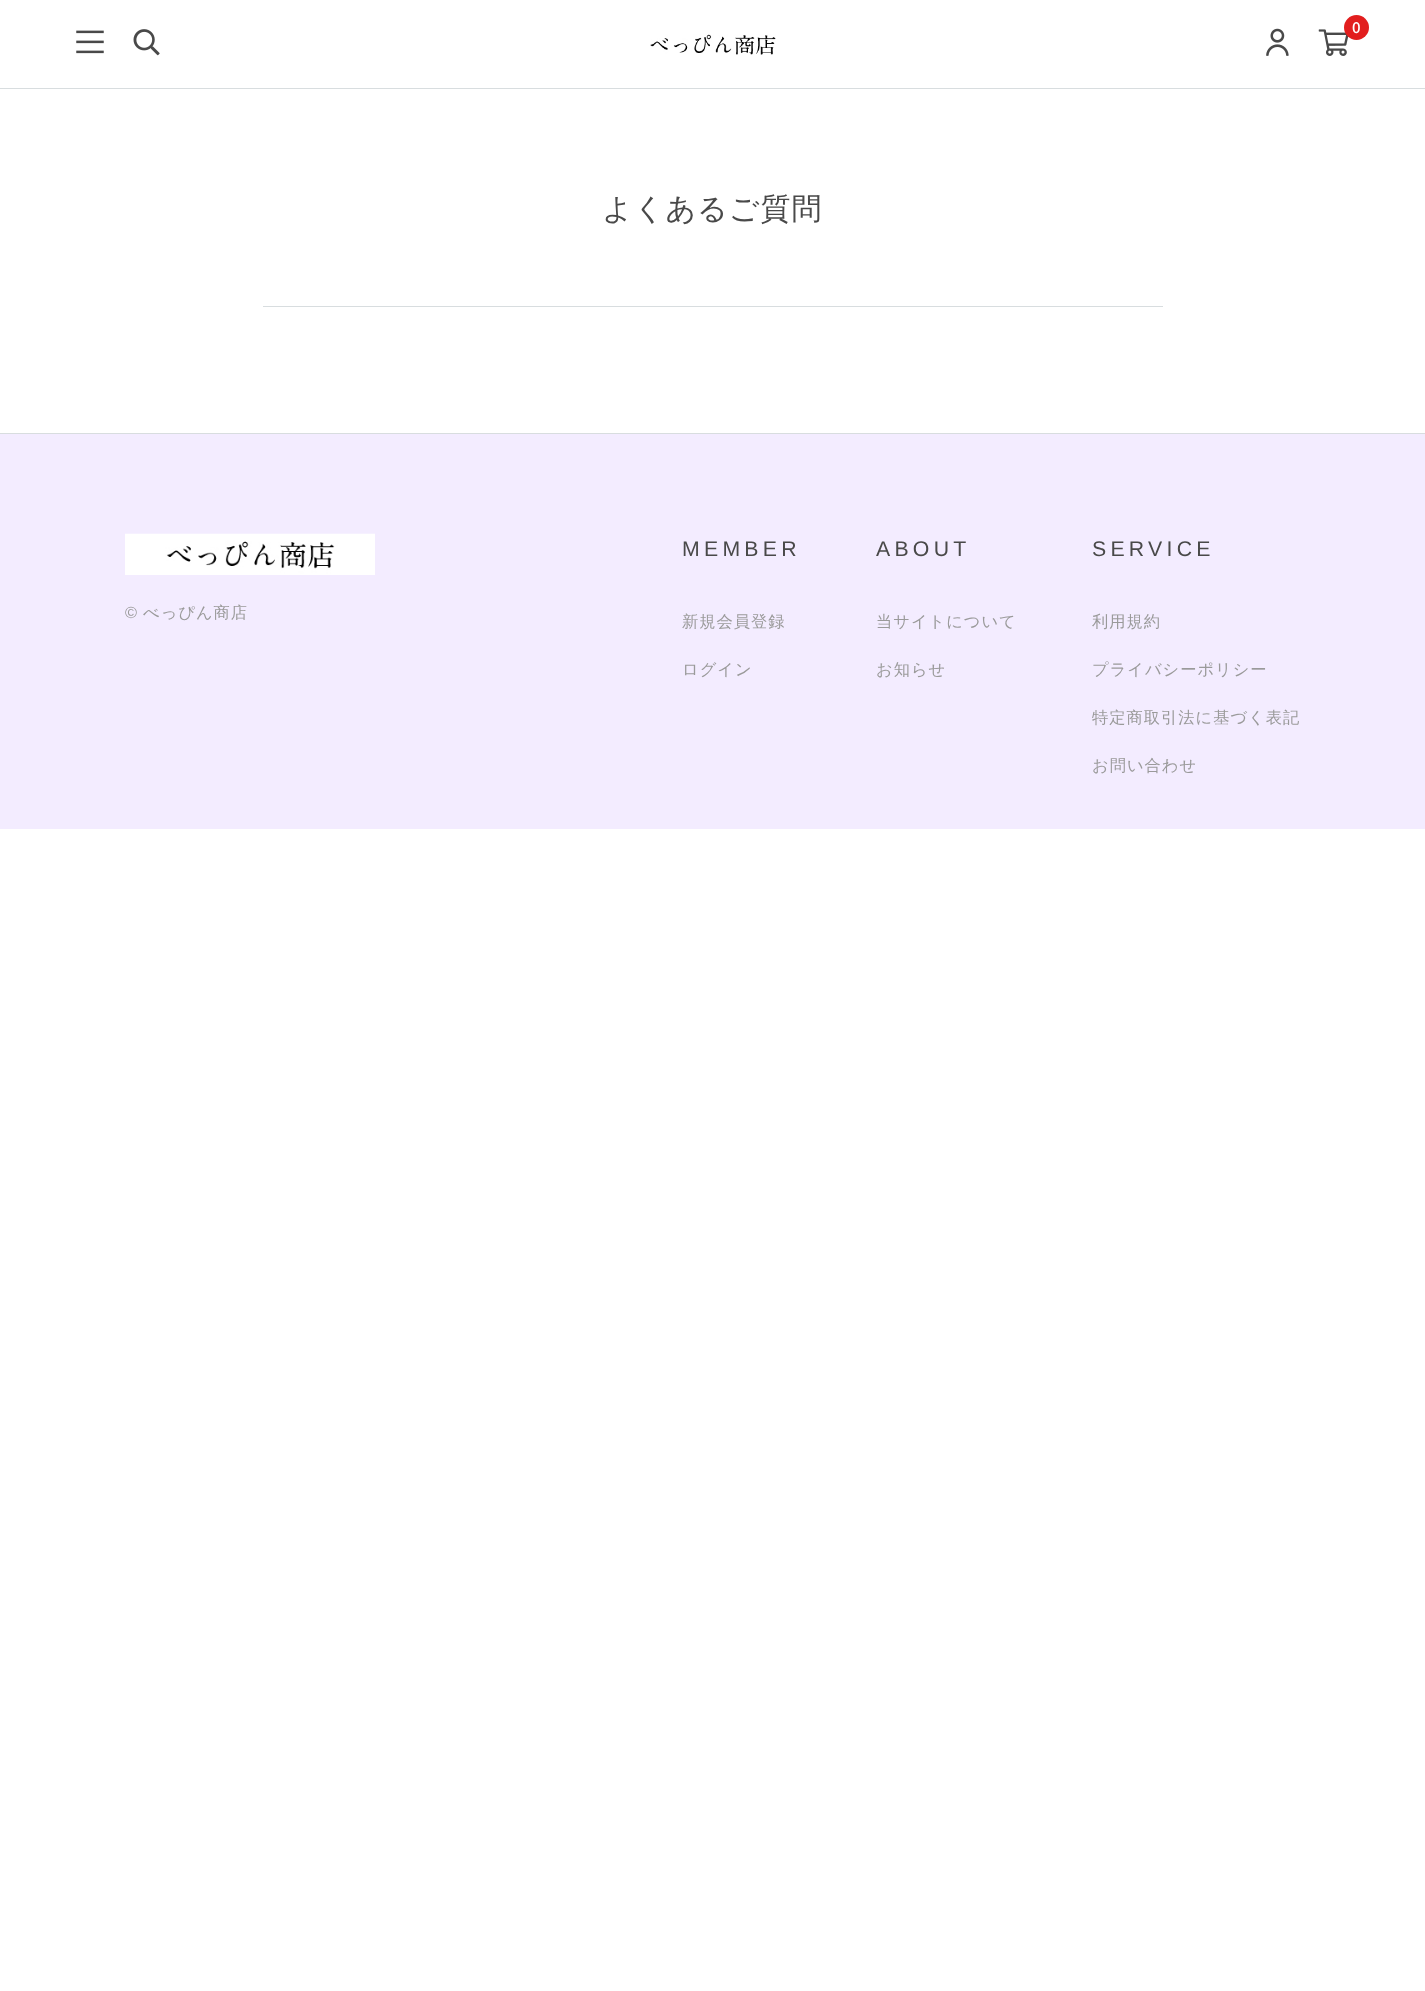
<!DOCTYPE html>
<meta charset="utf-8">
<style>body { margin: 0 } canvas { display: block }</style>
<canvas id="canvas" width="1425" height="1991"></canvas>
<script type="module">
  const canvas = document.getElementById("canvas");
  const ctx = canvas.getContext("2d");
  ctx.miterLimit = 4;
  ctx.fontKerning = "normal";
  async function loadImage(src) {
    const img = new Image();
    img.src = src;
    await img.decode();
    return img;
  }

  ctx.fillStyle = "#ffffff";
  ctx.fillRect(0, 0, 1425, 1991);
  ctx.fillStyle = "#d8dddf";
  ctx.fillRect(0, 88, 1425, 1);
  ctx.drawImage(await loadImage("img1.png"), 1266, 28, 23, 28);
  ctx.drawImage(await loadImage("img2.png"), 1318, 29, 31, 27);
  ctx.fillStyle = "#e21e1e";
  ctx.beginPath();
  ctx.arc(1356.5, 27.5, 12.5, 0, Math.PI * 2);
  ctx.fill();
  ctx.letterSpacing = "1px";
  ctx.font = "100 15px Noto Sans JP";
  ctx.fillStyle = "#ffffff";
  ctx.fillText("0", 1352, 33);
  ctx.drawImage(await loadImage("img3.png"), 76, 30, 28, 24);
  ctx.drawImage(await loadImage("img4.png"), 133, 29, 27, 27);
  ctx.drawImage(await loadImage("img5.png"), 650, 34, 126, 21);
  ctx.font = "500 30px WenQuanYi Zen Hei";
  ctx.fillStyle = "#494949";
  ctx.fillText("よくあるご質問", 602, 219);
  ctx.fillStyle = "#d8dddf";
  ctx.fillRect(263, 306, 900, 1);
  ctx.fillStyle = "#f3ecff";
  ctx.fillRect(0, 434, 1425, 395);
  ctx.fillStyle = "#d8dddf";
  ctx.fillRect(0, 433, 1425, 1);
  ctx.drawImage(await loadImage("img6.png"), 125, 533, 250, 42);
  ctx.font = "16.25px Liberation Sans";
  ctx.fillStyle = "#9a9a9a";
  ctx.fillText("©", 125, 618);
  ctx.font = "500 16.25px WenQuanYi Zen Hei";
  ctx.fillText("べっぴん商店", 143, 618);
  ctx.letterSpacing = "4.25px";
  ctx.font = "21.25px Liberation Sans";
  ctx.fillStyle = "#494949";
  ctx.fillText("MEMBER", 682, 556);
  ctx.letterSpacing = "1px";
  ctx.font = "500 16.25px WenQuanYi Zen Hei";
  ctx.fillStyle = "#9a9a9a";
  ctx.fillText("新規会員登録", 682, 627);
  ctx.fillText("ログイン", 682, 675);
  ctx.letterSpacing = "4.25px";
  ctx.font = "21.25px Liberation Sans";
  ctx.fillStyle = "#494949";
  ctx.fillText("ABOUT", 876, 556);
  ctx.letterSpacing = "1px";
  ctx.font = "500 16.25px WenQuanYi Zen Hei";
  ctx.fillStyle = "#9a9a9a";
  ctx.fillText("当サイトについて", 876, 627);
  ctx.fillText("お知らせ", 876, 675);
  ctx.letterSpacing = "4.25px";
  ctx.font = "21.25px Liberation Sans";
  ctx.fillStyle = "#494949";
  ctx.fillText("SERVICE", 1092, 556);
  ctx.letterSpacing = "1px";
  ctx.font = "500 16.25px WenQuanYi Zen Hei";
  ctx.fillStyle = "#9a9a9a";
  ctx.fillText("利用規約", 1092, 627);
  ctx.fillText("プライバシーポリシー", 1092, 675);
  ctx.fillText("特定商取引法に基づく表記", 1092, 723);
  ctx.fillText("お問い合わせ", 1092, 771);
</script>
